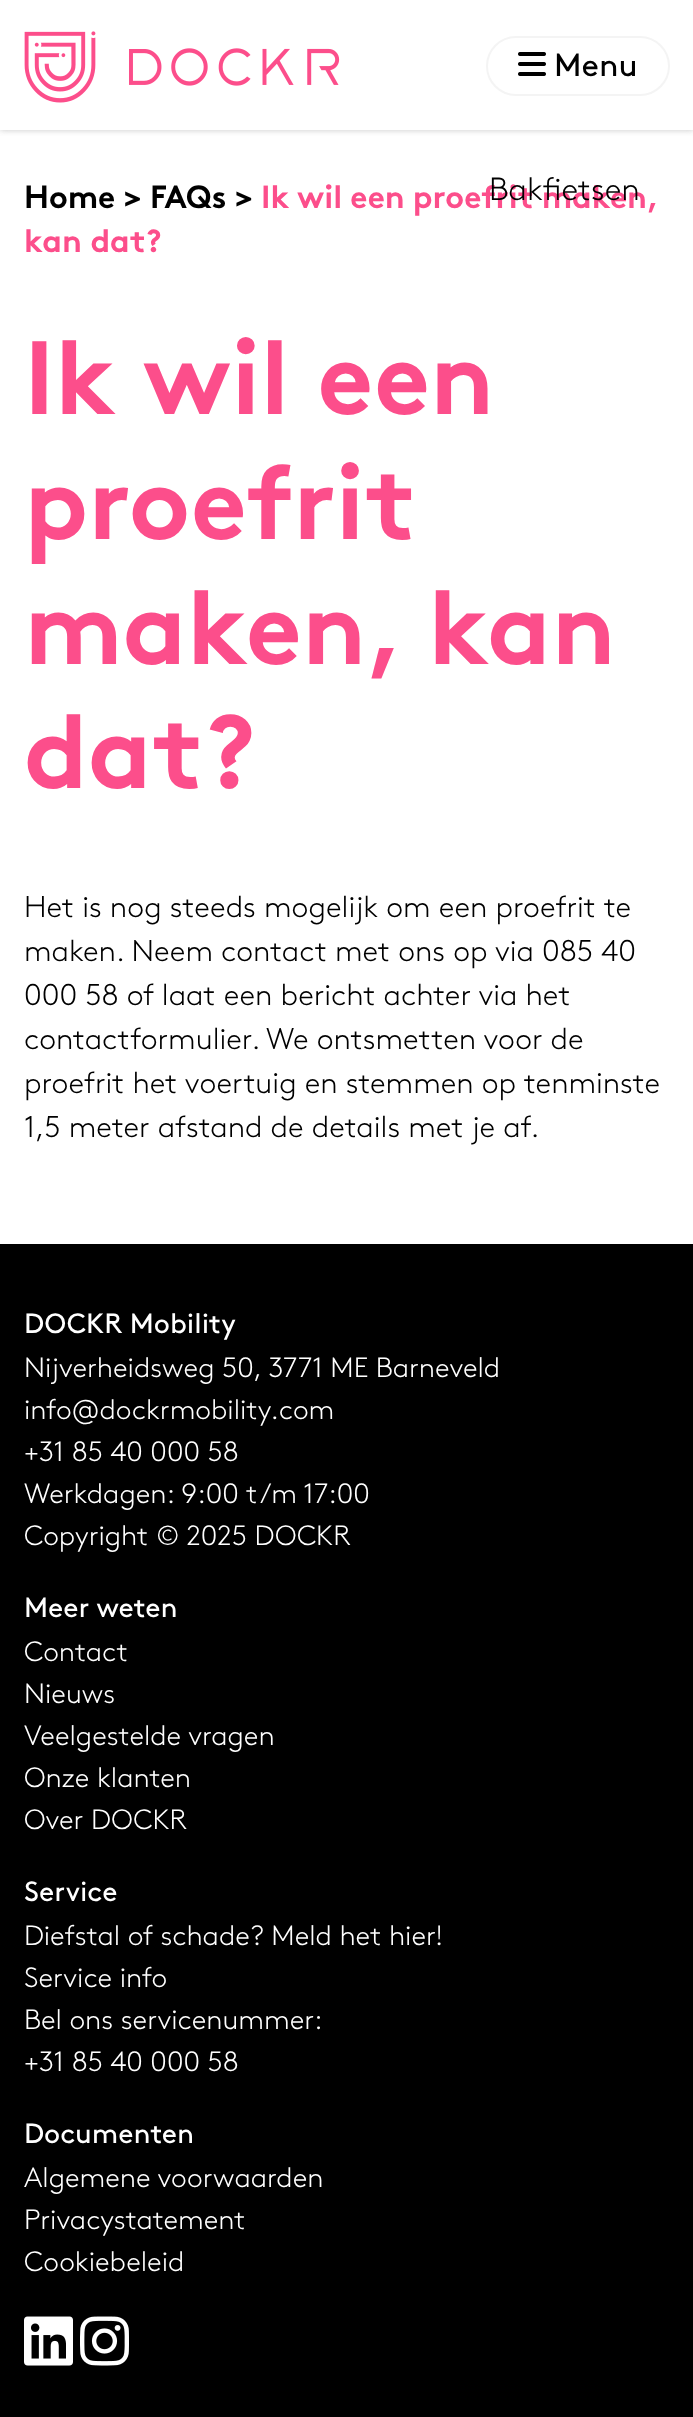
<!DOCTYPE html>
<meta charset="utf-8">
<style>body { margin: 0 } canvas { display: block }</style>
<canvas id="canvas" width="693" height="2417"></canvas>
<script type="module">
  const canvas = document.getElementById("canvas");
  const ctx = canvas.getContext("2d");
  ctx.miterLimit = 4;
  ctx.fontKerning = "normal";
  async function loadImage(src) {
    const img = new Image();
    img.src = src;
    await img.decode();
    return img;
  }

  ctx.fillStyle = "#ffffff";
  ctx.fillRect(0, 0, 693, 2417);
  ctx.save();
  ctx.beginPath();
  ctx.rect(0, 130, 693, 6);
  ctx.clip();
  ctx.fillStyle = "#c7c7c7";
  ctx.filter = "blur(3px)";
  ctx.beginPath();
  ctx.rect(0, 0, 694, 130);
  ctx.fill();
  ctx.filter = "none";
  ctx.restore();
  ctx.drawImage(await loadImage("img1.png"), 24, 31, 316, 72);
  ctx.beginPath();
  ctx.roundRect(487, 37, 182, 58, 29);
  ctx.strokeStyle = "#f4f4f4";
  ctx.lineWidth = 2;
  ctx.stroke();
  ctx.drawImage(await loadImage("img2.png"), 518, 52, 28, 24);
  ctx.font = "32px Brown";
  ctx.fillStyle = "#000000";
  ctx.fillText("Menu", 554, 76);
  ctx.wordSpacing = "-0.5px";
  ctx.font = "bold 32px Brown";
  ctx.fillStyle = "#fc4e8b";
  ctx.fillText("Ik wil een proefrit maken,", 261, 208);
  ctx.wordSpacing = "0px";
  ctx.font = "300 32px Brown";
  ctx.fillStyle = "#000000";
  ctx.fillText("Bakfietsen", 489, 200);
  ctx.font = "bold 32px Brown";
  ctx.fillText("Home > FAQs >", 24, 208);
  ctx.fillStyle = "#fc4e8b";
  ctx.fillText("kan dat?", 24, 252);
  ctx.font = "bold 104px Brown";
  ctx.fillText("Ik wil een", 24, 414);
  ctx.fillText("proefrit", 24, 539);
  ctx.fillText("maken, kan", 24, 664);
  ctx.fillText("dat?", 24, 788);
  ctx.font = "300 30px Brown";
  ctx.fillStyle = "#000000";
  ctx.fillText("Het is nog steeds mogelijk om een proefrit te", 24, 917);
  ctx.fillText("maken. Neem contact met ons op via 085 40", 24, 961);
  ctx.fillText("000 58 of laat een bericht achter via het", 24, 1005);
  ctx.fillText("contactformulier. We ontsmetten voor de", 24, 1049);
  ctx.fillText("proefrit het voertuig en stemmen op tenminste", 24, 1093);
  ctx.fillText("1,5 meter afstand de details met je af.", 24, 1137);
  ctx.fillRect(0, 1244, 693, 1173);
  ctx.font = "28px Brown";
  ctx.fillStyle = "#ffffff";
  ctx.fillText("DOCKR Mobility", 24, 1333);
  ctx.font = "300 28px Brown";
  ctx.fillText("Nijverheidsweg 50, 3771 ME Barneveld", 24, 1377);
  ctx.fillText("info@dockrmobility.com", 24, 1419);
  ctx.fillText("+31 85 40 000 58", 24, 1461);
  ctx.fillText("Werkdagen: 9:00 t/m 17:00", 24, 1503);
  ctx.fillText("Copyright © 2025 DOCKR", 24, 1545);
  ctx.font = "28px Brown";
  ctx.fillText("Meer weten", 24, 1617);
  ctx.font = "300 28px Brown";
  ctx.fillText("Contact", 24, 1661);
  ctx.fillText("Nieuws", 24, 1703);
  ctx.fillText("Veelgestelde vragen", 24, 1745);
  ctx.fillText("Onze klanten", 24, 1787);
  ctx.fillText("Over DOCKR", 24, 1829);
  ctx.font = "28px Brown";
  ctx.fillText("Service", 24, 1901);
  ctx.font = "300 28px Brown";
  ctx.fillText("Diefstal of schade? Meld het hier!", 24, 1945);
  ctx.fillText("Service info", 24, 1987);
  ctx.fillText("Bel ons servicenummer:", 24, 2029);
  ctx.fillText("+31 85 40 000 58", 24, 2071);
  ctx.font = "28px Brown";
  ctx.fillText("Documenten", 24, 2143);
  ctx.font = "300 28px Brown";
  ctx.fillText("Algemene voorwaarden", 24, 2187);
  ctx.fillText("Privacystatement", 24, 2229);
  ctx.fillText("Cookiebeleid", 24, 2271);
  ctx.drawImage(await loadImage("img3.png"), 24, 2316, 49, 50);
  ctx.drawImage(await loadImage("img4.png"), 80, 2316, 49, 50);
</script>
